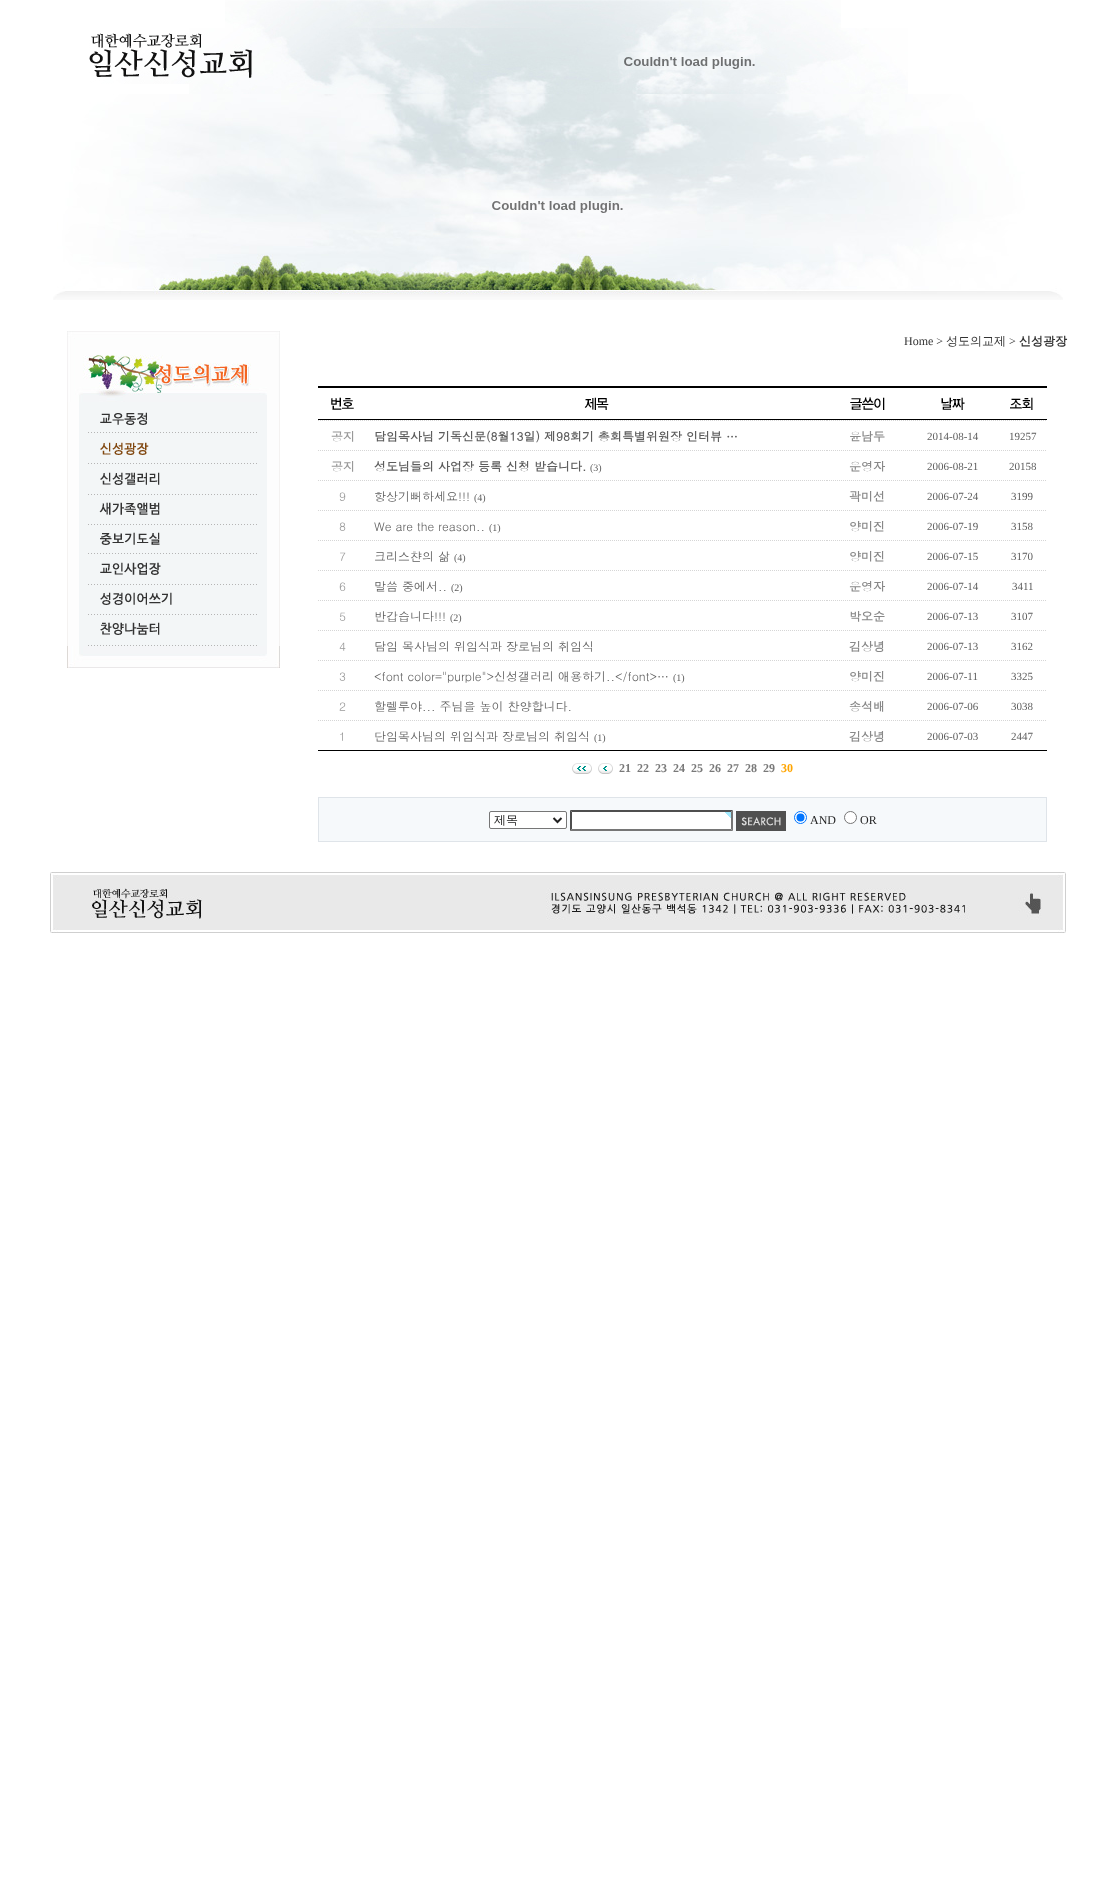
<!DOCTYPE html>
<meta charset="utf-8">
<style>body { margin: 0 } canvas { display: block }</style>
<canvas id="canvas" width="1115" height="1891"></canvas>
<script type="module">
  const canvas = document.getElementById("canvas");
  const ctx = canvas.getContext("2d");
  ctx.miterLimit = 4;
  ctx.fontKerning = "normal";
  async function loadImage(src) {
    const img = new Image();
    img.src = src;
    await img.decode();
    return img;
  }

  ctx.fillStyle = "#ffffff";
  ctx.fillRect(0, 0, 1115, 1891);
  ctx.drawImage(await loadImage("img1.png"), 225, 0, 616, 28);
  ctx.drawImage(await loadImage("img2.png"), 189, 28, 719, 66);
  ctx.drawImage(await loadImage("img3.png"), 89, 33, 163, 51);
  ctx.drawImage(await loadImage("img4.png"), 618, 52, 137, 18);
  ctx.drawImage(await loadImage("img5.png"), 53, 94, 1010, 206);
  ctx.drawImage(await loadImage("img6.png"), 492, 196, 131, 17);
  ctx.drawImage(await loadImage("img7.png"), 67, 331, 213, 71);
  ctx.drawImage(await loadImage("img8.png"), 67, 402, 213, 32);
  ctx.drawImage(await loadImage("img9.png"), 67, 434, 213, 31);
  ctx.drawImage(await loadImage("img10.png"), 67, 465, 213, 31);
  ctx.drawImage(await loadImage("img11.png"), 67, 496, 213, 30);
  ctx.drawImage(await loadImage("img12.png"), 67, 526, 213, 29);
  ctx.drawImage(await loadImage("img13.png"), 67, 555, 213, 31);
  ctx.drawImage(await loadImage("img14.png"), 67, 586, 213, 30);
  ctx.drawImage(await loadImage("img15.png"), 67, 616, 213, 30);
  ctx.drawImage(await loadImage("img16.png"), 67, 646, 213, 22);
  ctx.font = "12px Liberation Serif";
  ctx.fillStyle = "#333333";
  ctx.fillText("Home >", 904, 345);
  ctx.font = "500 12px WenQuanYi Zen Hei";
  ctx.fillText("성도의교제", 946, 345);
  ctx.font = "12px Liberation Serif";
  ctx.fillText(">", 1009, 345);
  ctx.font = "bold 12px WenQuanYi Zen Hei";
  ctx.fillText("신성광장", 1019, 345);
  ctx.fillStyle = "#000000";
  ctx.fillRect(318, 750, 729, 1);
  ctx.fillRect(318, 386, 729, 2);
  ctx.fillRect(318, 419, 729, 1);
  ctx.drawImage(await loadImage("img17.png"), 331, 397, 23, 13);
  ctx.drawImage(await loadImage("img18.png"), 584, 397, 25, 13);
  ctx.drawImage(await loadImage("img19.png"), 850, 397, 35, 13);
  ctx.drawImage(await loadImage("img20.png"), 941, 397, 24, 13);
  ctx.drawImage(await loadImage("img21.png"), 1010, 397, 23, 13);
  ctx.beginPath();
  ctx.moveTo(318, 420.5);
  ctx.lineTo(368, 420.5);
  ctx.strokeStyle = "#d6d6d6";
  ctx.setLineDash([1, 1]);
  ctx.stroke();
  ctx.font = "bold 12px Dotum";
  ctx.fillStyle = "#999999";
  ctx.fillText("공지", 331, 441);
  ctx.beginPath();
  ctx.moveTo(368, 420.5);
  ctx.lineTo(827, 420.5);
  ctx.stroke();
  ctx.fillStyle = "#5d5d5d";
  ctx.fillText("담임목사님 기독신문(8월13일) 제98회기 총회특별위원장 인터뷰 …", 374, 441);
  ctx.beginPath();
  ctx.moveTo(827, 420.5);
  ctx.lineTo(907, 420.5);
  ctx.stroke();
  ctx.fillStyle = "#888888";
  ctx.fillText("윤남두", 849, 441);
  ctx.beginPath();
  ctx.moveTo(907, 420.5);
  ctx.lineTo(997, 420.5);
  ctx.stroke();
  ctx.font = "11px Liberation Serif";
  ctx.fillStyle = "#5d5d5d";
  ctx.fillText("2014-08-14", 927, 440);
  ctx.beginPath();
  ctx.moveTo(997, 420.5);
  ctx.lineTo(1047, 420.5);
  ctx.stroke();
  ctx.fillText("19257", 1009, 440);
  ctx.beginPath();
  ctx.moveTo(318, 450.5);
  ctx.lineTo(368, 450.5);
  ctx.stroke();
  ctx.font = "bold 12px Dotum";
  ctx.fillStyle = "#999999";
  ctx.fillText("공지", 331, 471);
  ctx.beginPath();
  ctx.moveTo(368, 450.5);
  ctx.lineTo(827, 450.5);
  ctx.stroke();
  ctx.fillStyle = "#5d5d5d";
  ctx.fillText("성도님들의 사업장 등록 신청 받습니다.", 374, 471);
  ctx.font = "10px Liberation Serif";
  ctx.fillText("(3)", 590, 471);
  ctx.beginPath();
  ctx.moveTo(827, 450.5);
  ctx.lineTo(907, 450.5);
  ctx.stroke();
  ctx.font = "bold 12px Dotum";
  ctx.fillStyle = "#888888";
  ctx.fillText("운영자", 849, 471);
  ctx.beginPath();
  ctx.moveTo(907, 450.5);
  ctx.lineTo(997, 450.5);
  ctx.stroke();
  ctx.font = "11px Liberation Serif";
  ctx.fillStyle = "#5d5d5d";
  ctx.fillText("2006-08-21", 927, 470);
  ctx.beginPath();
  ctx.moveTo(997, 450.5);
  ctx.lineTo(1047, 450.5);
  ctx.stroke();
  ctx.fillText("20158", 1009, 470);
  ctx.beginPath();
  ctx.moveTo(318, 480.5);
  ctx.lineTo(368, 480.5);
  ctx.stroke();
  ctx.font = "12px Dotum";
  ctx.fillStyle = "#999999";
  ctx.fillText("9", 339, 501);
  ctx.beginPath();
  ctx.moveTo(368, 480.5);
  ctx.lineTo(827, 480.5);
  ctx.stroke();
  ctx.fillStyle = "#5d5d5d";
  ctx.fillText("항상기뻐하세요!!!", 374, 501);
  ctx.font = "10px Liberation Serif";
  ctx.fillText("(4)", 474, 501);
  ctx.beginPath();
  ctx.moveTo(827, 480.5);
  ctx.lineTo(907, 480.5);
  ctx.stroke();
  ctx.font = "bold 12px Dotum";
  ctx.fillStyle = "#888888";
  ctx.fillText("곽미선", 849, 501);
  ctx.beginPath();
  ctx.moveTo(907, 480.5);
  ctx.lineTo(997, 480.5);
  ctx.stroke();
  ctx.font = "11px Liberation Serif";
  ctx.fillStyle = "#5d5d5d";
  ctx.fillText("2006-07-24", 927, 500);
  ctx.beginPath();
  ctx.moveTo(997, 480.5);
  ctx.lineTo(1047, 480.5);
  ctx.stroke();
  ctx.fillText("3199", 1011, 500);
  ctx.beginPath();
  ctx.moveTo(318, 510.5);
  ctx.lineTo(368, 510.5);
  ctx.stroke();
  ctx.font = "12px Dotum";
  ctx.fillStyle = "#999999";
  ctx.fillText("8", 339, 531);
  ctx.beginPath();
  ctx.moveTo(368, 510.5);
  ctx.lineTo(827, 510.5);
  ctx.stroke();
  ctx.fillStyle = "#5d5d5d";
  ctx.fillText("We are the reason..", 374, 531);
  ctx.font = "10px Liberation Serif";
  ctx.fillText("(1)", 489, 531);
  ctx.beginPath();
  ctx.moveTo(827, 510.5);
  ctx.lineTo(907, 510.5);
  ctx.stroke();
  ctx.font = "bold 12px Dotum";
  ctx.fillStyle = "#888888";
  ctx.fillText("양미진", 849, 531);
  ctx.beginPath();
  ctx.moveTo(907, 510.5);
  ctx.lineTo(997, 510.5);
  ctx.stroke();
  ctx.font = "11px Liberation Serif";
  ctx.fillStyle = "#5d5d5d";
  ctx.fillText("2006-07-19", 927, 530);
  ctx.beginPath();
  ctx.moveTo(997, 510.5);
  ctx.lineTo(1047, 510.5);
  ctx.stroke();
  ctx.fillText("3158", 1011, 530);
  ctx.beginPath();
  ctx.moveTo(318, 540.5);
  ctx.lineTo(368, 540.5);
  ctx.stroke();
  ctx.font = "12px Dotum";
  ctx.fillStyle = "#999999";
  ctx.fillText("7", 339, 561);
  ctx.beginPath();
  ctx.moveTo(368, 540.5);
  ctx.lineTo(827, 540.5);
  ctx.stroke();
  ctx.fillStyle = "#5d5d5d";
  ctx.fillText("크리스챤의 삶", 374, 561);
  ctx.font = "10px Liberation Serif";
  ctx.fillText("(4)", 454, 561);
  ctx.beginPath();
  ctx.moveTo(827, 540.5);
  ctx.lineTo(907, 540.5);
  ctx.stroke();
  ctx.font = "bold 12px Dotum";
  ctx.fillStyle = "#888888";
  ctx.fillText("양미진", 849, 561);
  ctx.beginPath();
  ctx.moveTo(907, 540.5);
  ctx.lineTo(997, 540.5);
  ctx.stroke();
  ctx.font = "11px Liberation Serif";
  ctx.fillStyle = "#5d5d5d";
  ctx.fillText("2006-07-15", 927, 560);
  ctx.beginPath();
  ctx.moveTo(997, 540.5);
  ctx.lineTo(1047, 540.5);
  ctx.stroke();
  ctx.fillText("3170", 1011, 560);
  ctx.beginPath();
  ctx.moveTo(318, 570.5);
  ctx.lineTo(368, 570.5);
  ctx.stroke();
  ctx.font = "12px Dotum";
  ctx.fillStyle = "#999999";
  ctx.fillText("6", 339, 591);
  ctx.beginPath();
  ctx.moveTo(368, 570.5);
  ctx.lineTo(827, 570.5);
  ctx.stroke();
  ctx.fillStyle = "#5d5d5d";
  ctx.fillText("말씀 중에서..", 374, 591);
  ctx.font = "10px Liberation Serif";
  ctx.fillText("(2)", 451, 591);
  ctx.beginPath();
  ctx.moveTo(827, 570.5);
  ctx.lineTo(907, 570.5);
  ctx.stroke();
  ctx.font = "bold 12px Dotum";
  ctx.fillStyle = "#888888";
  ctx.fillText("운영자", 849, 591);
  ctx.beginPath();
  ctx.moveTo(907, 570.5);
  ctx.lineTo(997, 570.5);
  ctx.stroke();
  ctx.font = "11px Liberation Serif";
  ctx.fillStyle = "#5d5d5d";
  ctx.fillText("2006-07-14", 927, 590);
  ctx.beginPath();
  ctx.moveTo(997, 570.5);
  ctx.lineTo(1047, 570.5);
  ctx.stroke();
  ctx.fillText("3411", 1012, 590);
  ctx.beginPath();
  ctx.moveTo(318, 600.5);
  ctx.lineTo(368, 600.5);
  ctx.stroke();
  ctx.font = "12px Dotum";
  ctx.fillStyle = "#999999";
  ctx.fillText("5", 339, 621);
  ctx.beginPath();
  ctx.moveTo(368, 600.5);
  ctx.lineTo(827, 600.5);
  ctx.stroke();
  ctx.fillStyle = "#5d5d5d";
  ctx.fillText("반갑습니다!!!", 374, 621);
  ctx.font = "10px Liberation Serif";
  ctx.fillText("(2)", 450, 621);
  ctx.beginPath();
  ctx.moveTo(827, 600.5);
  ctx.lineTo(907, 600.5);
  ctx.stroke();
  ctx.font = "bold 12px Dotum";
  ctx.fillStyle = "#888888";
  ctx.fillText("박오순", 849, 621);
  ctx.beginPath();
  ctx.moveTo(907, 600.5);
  ctx.lineTo(997, 600.5);
  ctx.stroke();
  ctx.font = "11px Liberation Serif";
  ctx.fillStyle = "#5d5d5d";
  ctx.fillText("2006-07-13", 927, 620);
  ctx.beginPath();
  ctx.moveTo(997, 600.5);
  ctx.lineTo(1047, 600.5);
  ctx.stroke();
  ctx.fillText("3107", 1011, 620);
  ctx.beginPath();
  ctx.moveTo(318, 630.5);
  ctx.lineTo(368, 630.5);
  ctx.stroke();
  ctx.font = "12px Dotum";
  ctx.fillStyle = "#999999";
  ctx.fillText("4", 339, 651);
  ctx.beginPath();
  ctx.moveTo(368, 630.5);
  ctx.lineTo(827, 630.5);
  ctx.stroke();
  ctx.fillStyle = "#5d5d5d";
  ctx.fillText("담임 목사님의 위임식과 장로님의 취임식", 374, 651);
  ctx.beginPath();
  ctx.moveTo(827, 630.5);
  ctx.lineTo(907, 630.5);
  ctx.stroke();
  ctx.font = "bold 12px Dotum";
  ctx.fillStyle = "#888888";
  ctx.fillText("김상녕", 849, 651);
  ctx.beginPath();
  ctx.moveTo(907, 630.5);
  ctx.lineTo(997, 630.5);
  ctx.stroke();
  ctx.font = "11px Liberation Serif";
  ctx.fillStyle = "#5d5d5d";
  ctx.fillText("2006-07-13", 927, 650);
  ctx.beginPath();
  ctx.moveTo(997, 630.5);
  ctx.lineTo(1047, 630.5);
  ctx.stroke();
  ctx.fillText("3162", 1011, 650);
  ctx.beginPath();
  ctx.moveTo(318, 660.5);
  ctx.lineTo(368, 660.5);
  ctx.stroke();
  ctx.font = "12px Dotum";
  ctx.fillStyle = "#999999";
  ctx.fillText("3", 339, 681);
  ctx.beginPath();
  ctx.moveTo(368, 660.5);
  ctx.lineTo(827, 660.5);
  ctx.stroke();
  ctx.fillStyle = "#5d5d5d";
  ctx.fillText("<font color=\"purple\">신성갤러리 애용하기..<\/font>…", 374, 681);
  ctx.font = "10px Liberation Serif";
  ctx.fillText("(1)", 673, 681);
  ctx.beginPath();
  ctx.moveTo(827, 660.5);
  ctx.lineTo(907, 660.5);
  ctx.stroke();
  ctx.font = "bold 12px Dotum";
  ctx.fillStyle = "#888888";
  ctx.fillText("양미진", 849, 681);
  ctx.beginPath();
  ctx.moveTo(907, 660.5);
  ctx.lineTo(997, 660.5);
  ctx.stroke();
  ctx.font = "11px Liberation Serif";
  ctx.fillStyle = "#5d5d5d";
  ctx.fillText("2006-07-11", 927, 680);
  ctx.beginPath();
  ctx.moveTo(997, 660.5);
  ctx.lineTo(1047, 660.5);
  ctx.stroke();
  ctx.fillText("3325", 1011, 680);
  ctx.beginPath();
  ctx.moveTo(318, 690.5);
  ctx.lineTo(368, 690.5);
  ctx.stroke();
  ctx.font = "12px Dotum";
  ctx.fillStyle = "#999999";
  ctx.fillText("2", 339, 711);
  ctx.beginPath();
  ctx.moveTo(368, 690.5);
  ctx.lineTo(827, 690.5);
  ctx.stroke();
  ctx.fillStyle = "#5d5d5d";
  ctx.fillText("할렐루야... 주님을 높이 찬양합니다.", 374, 711);
  ctx.beginPath();
  ctx.moveTo(827, 690.5);
  ctx.lineTo(907, 690.5);
  ctx.stroke();
  ctx.font = "bold 12px Dotum";
  ctx.fillStyle = "#888888";
  ctx.fillText("송석배", 849, 711);
  ctx.beginPath();
  ctx.moveTo(907, 690.5);
  ctx.lineTo(997, 690.5);
  ctx.stroke();
  ctx.font = "11px Liberation Serif";
  ctx.fillStyle = "#5d5d5d";
  ctx.fillText("2006-07-06", 927, 710);
  ctx.beginPath();
  ctx.moveTo(997, 690.5);
  ctx.lineTo(1047, 690.5);
  ctx.stroke();
  ctx.fillText("3038", 1011, 710);
  ctx.beginPath();
  ctx.moveTo(318, 720.5);
  ctx.lineTo(368, 720.5);
  ctx.stroke();
  ctx.font = "12px Dotum";
  ctx.fillStyle = "#999999";
  ctx.fillText("1", 339, 741);
  ctx.beginPath();
  ctx.moveTo(368, 720.5);
  ctx.lineTo(827, 720.5);
  ctx.stroke();
  ctx.fillStyle = "#5d5d5d";
  ctx.fillText("단임목사님의 위임식과 장로님의 취임식", 374, 741);
  ctx.font = "10px Liberation Serif";
  ctx.fillText("(1)", 594, 741);
  ctx.beginPath();
  ctx.moveTo(827, 720.5);
  ctx.lineTo(907, 720.5);
  ctx.stroke();
  ctx.font = "bold 12px Dotum";
  ctx.fillStyle = "#888888";
  ctx.fillText("김상녕", 849, 741);
  ctx.beginPath();
  ctx.moveTo(907, 720.5);
  ctx.lineTo(997, 720.5);
  ctx.stroke();
  ctx.font = "11px Liberation Serif";
  ctx.fillStyle = "#5d5d5d";
  ctx.fillText("2006-07-03", 927, 740);
  ctx.beginPath();
  ctx.moveTo(997, 720.5);
  ctx.lineTo(1047, 720.5);
  ctx.stroke();
  ctx.fillText("2447", 1011, 740);
  ctx.drawImage(await loadImage("img22.png"), 572, 763, 20, 11);
  ctx.drawImage(await loadImage("img23.png"), 598, 763, 15, 11);
  ctx.font = "bold 12px Liberation Serif";
  ctx.fillStyle = "#797979";
  ctx.fillText("21", 619, 772);
  ctx.fillText("22", 637, 772);
  ctx.fillText("23", 655, 772);
  ctx.fillText("24", 673, 772);
  ctx.fillText("25", 691, 772);
  ctx.fillText("26", 709, 772);
  ctx.fillText("27", 727, 772);
  ctx.fillText("28", 745, 772);
  ctx.fillText("29", 763, 772);
  ctx.fillStyle = "#ffa500";
  ctx.fillText("30", 781, 772);
  ctx.fillStyle = "#dfe4e9";
  ctx.fillRect(318, 797, 729, 45);
  ctx.fillStyle = "#f6f9fb";
  ctx.fillRect(319, 798, 727, 43);
  ctx.fillStyle = "#ffffff";
  ctx.beginPath();
  ctx.roundRect(489.5, 811.5, 77, 17, 1.5);
  ctx.fill();
  ctx.strokeStyle = "#767676";
  ctx.setLineDash([]);
  ctx.stroke();
  ctx.beginPath();
  ctx.moveTo(553.5, 818);
  ctx.lineTo(557.5, 822);
  ctx.lineTo(561.5, 818);
  ctx.strokeStyle = "#222222";
  ctx.lineWidth = 2;
  ctx.stroke();
  ctx.font = "500 12px WenQuanYi Zen Hei";
  ctx.fillStyle = "#222222";
  ctx.fillText("제목", 494, 824);
  ctx.fillStyle = "#ffffff";
  ctx.fillRect(570, 810, 163, 21);
  ctx.drawImage(await loadImage("img24.png"), 725, 812, 6, 6);
  ctx.fillStyle = "#4f4f4f";
  ctx.beginPath();
  ctx.moveTo(570, 810);
  ctx.lineTo(733, 810);
  ctx.lineTo(731, 812);
  ctx.lineTo(572, 812);
  ctx.closePath();
  ctx.fill();
  ctx.fillStyle = "#767676";
  ctx.beginPath();
  ctx.moveTo(733, 810);
  ctx.lineTo(733, 831);
  ctx.lineTo(731, 829);
  ctx.lineTo(731, 812);
  ctx.closePath();
  ctx.fill();
  ctx.beginPath();
  ctx.moveTo(733, 831);
  ctx.lineTo(570, 831);
  ctx.lineTo(572, 829);
  ctx.lineTo(731, 829);
  ctx.closePath();
  ctx.fill();
  ctx.fillStyle = "#4f4f4f";
  ctx.beginPath();
  ctx.moveTo(570, 831);
  ctx.lineTo(570, 810);
  ctx.lineTo(572, 812);
  ctx.lineTo(572, 829);
  ctx.closePath();
  ctx.fill();
  ctx.drawImage(await loadImage("img25.png"), 736, 811, 50, 20);
  ctx.fillStyle = "#ffffff";
  ctx.beginPath();
  ctx.arc(800.5, 817.5, 6, 0, Math.PI * 2);
  ctx.fill();
  ctx.strokeStyle = "#0075ff";
  ctx.lineWidth = 1;
  ctx.stroke();
  ctx.fillStyle = "#0075ff";
  ctx.beginPath();
  ctx.arc(800.5, 817.5, 4, 0, Math.PI * 2);
  ctx.fill();
  ctx.font = "12px Liberation Serif";
  ctx.fillStyle = "#222222";
  ctx.fillText("AND", 810, 824);
  ctx.fillStyle = "#ffffff";
  ctx.beginPath();
  ctx.arc(850.5, 817.5, 6, 0, Math.PI * 2);
  ctx.fill();
  ctx.strokeStyle = "#767676";
  ctx.stroke();
  ctx.fillStyle = "#222222";
  ctx.fillText("OR", 860, 824);
  ctx.drawImage(await loadImage("img26.png"), 50, 872, 1016, 61);
</script>
